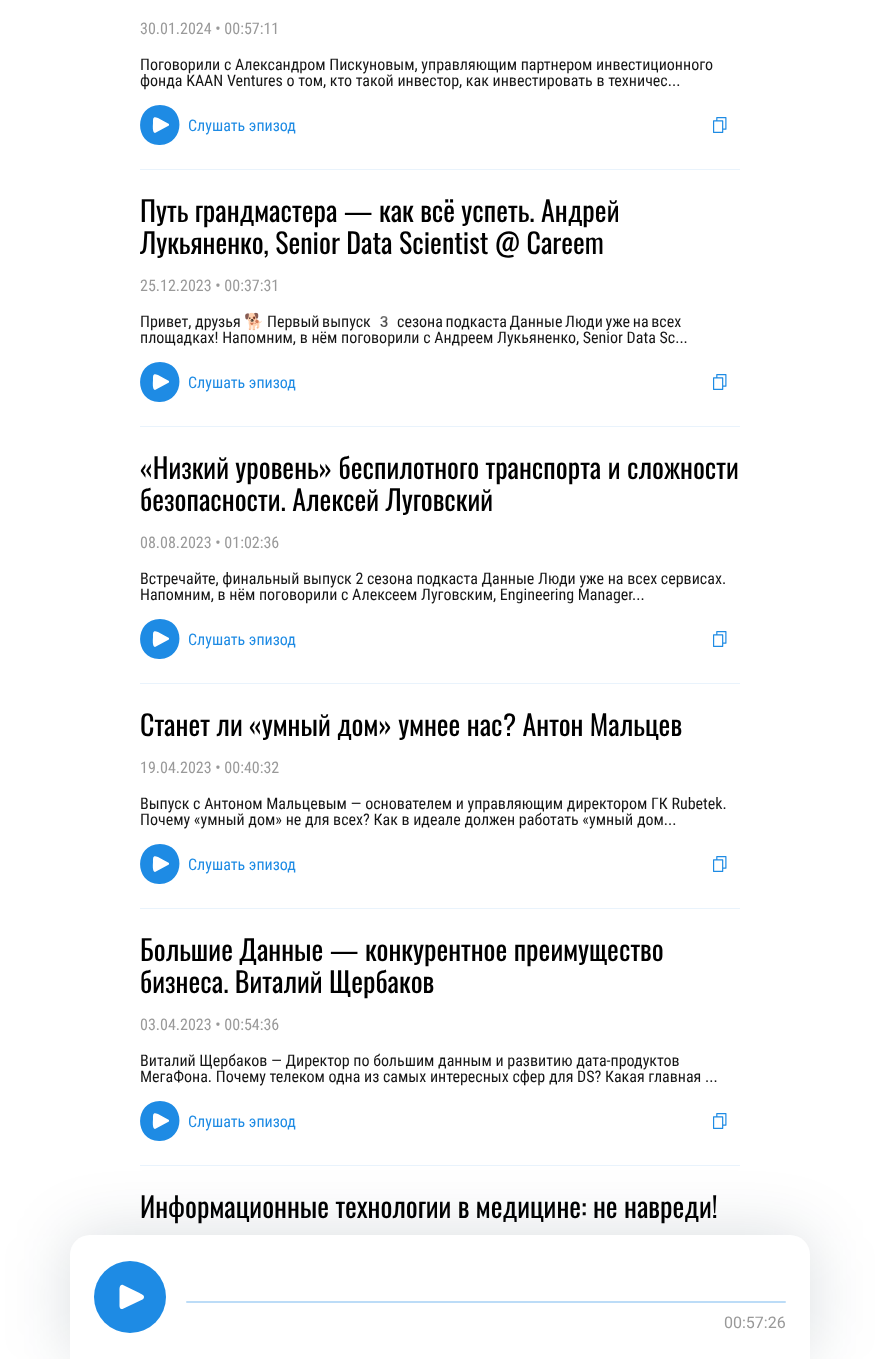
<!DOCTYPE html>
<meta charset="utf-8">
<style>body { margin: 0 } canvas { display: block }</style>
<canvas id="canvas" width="879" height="1359"></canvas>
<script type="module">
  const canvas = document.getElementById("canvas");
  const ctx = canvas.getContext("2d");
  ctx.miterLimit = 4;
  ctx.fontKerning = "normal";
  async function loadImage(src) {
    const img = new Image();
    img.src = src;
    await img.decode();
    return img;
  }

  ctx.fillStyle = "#ffffff";
  ctx.fillRect(0, 0, 879, 1359);
  ctx.fillStyle = "#e9f3fc";
  ctx.fillRect(140, 169, 600, 1);
  ctx.font = "16px Roboto Condensed";
  ctx.fillStyle = "#999999";
  ctx.fillText("30.01.2024 • 00:57:11", 140, 34);
  ctx.fillStyle = "#151515";
  ctx.fillText("Поговорили с Александром Пискуновым, управляющим партнером инвестиционного", 140, 70);
  ctx.fillText("фонда KAAN Ventures о том, кто такой инвестор, как инвестировать в техничес...", 140, 86);
  ctx.fillStyle = "#1e8be4";
  ctx.beginPath();
  ctx.moveTo(160, 105);
  ctx.bezierCurveTo(133, 105, 134, 146, 160, 145);
  ctx.bezierCurveTo(186, 144, 186, 105, 160, 105);
  ctx.closePath();
  ctx.moveTo(168, 126);
  ctx.lineTo(155, 133);
  ctx.bezierCurveTo(152, 133, 153, 124, 153, 123);
  ctx.bezierCurveTo(153, 118, 153, 116, 158, 118);
  ctx.lineTo(169, 124);
  ctx.bezierCurveTo(169, 125, 169, 126, 168, 126);
  ctx.closePath();
  ctx.fill();
  ctx.fillText("Слушать эпизод", 188, 131);
  ctx.drawImage(await loadImage("img1.png"), 713, 117, 14, 16);
  ctx.fillStyle = "#e9f3fc";
  ctx.fillRect(140, 426, 600, 1);
  ctx.font = "28px Oswald";
  ctx.fillStyle = "#000000";
  ctx.fillText("Путь грандмастера — как всё успеть. Андрей", 140, 222);
  ctx.fillText("Лукьяненко, Senior Data Scientist @ Careem", 140, 254);
  ctx.font = "16px Roboto Condensed";
  ctx.fillStyle = "#999999";
  ctx.fillText("25.12.2023 • 00:37:31", 140, 291);
  ctx.fillStyle = "#151515";
  ctx.fillText("Привет, друзья", 140, 327);
  ctx.font = "16px Noto Color Emoji";
  ctx.fillText("🐕", 244, 327);
  ctx.wordSpacing = "-1px";
  ctx.font = "16px Roboto Condensed";
  ctx.fillText("Первый выпуск", 267, 327);
  ctx.wordSpacing = "0px";
  ctx.font = "16px Noto Color Emoji";
  ctx.fillText("3", 374, 327);
  ctx.wordSpacing = "-1px";
  ctx.font = "16px Roboto Condensed";
  ctx.fillText("сезона подкаста Данные Люди уже на всех", 397, 327);
  ctx.wordSpacing = "0px";
  ctx.fillText("площадках! Напомним, в нём поговорили с Андреем Лукьяненко, Senior Data Sc...", 140, 343);
  ctx.fillStyle = "#1e8be4";
  ctx.beginPath();
  ctx.moveTo(160, 362);
  ctx.bezierCurveTo(133, 362, 134, 403, 160, 402);
  ctx.bezierCurveTo(186, 401, 186, 362, 160, 362);
  ctx.closePath();
  ctx.moveTo(168, 383);
  ctx.lineTo(155, 390);
  ctx.bezierCurveTo(152, 390, 153, 381, 153, 380);
  ctx.bezierCurveTo(153, 375, 153, 373, 158, 375);
  ctx.lineTo(169, 381);
  ctx.bezierCurveTo(169, 382, 169, 383, 168, 383);
  ctx.closePath();
  ctx.fill();
  ctx.fillText("Слушать эпизод", 188, 388);
  ctx.drawImage(await loadImage("img1.png"), 713, 374, 14, 16);
  ctx.fillStyle = "#e9f3fc";
  ctx.fillRect(140, 683, 600, 1);
  ctx.font = "28px Oswald";
  ctx.fillStyle = "#000000";
  ctx.fillText("«Низкий уровень» беспилотного транспорта и сложности", 140, 479);
  ctx.fillText("безопасности. Алексей Луговский", 140, 511);
  ctx.font = "16px Roboto Condensed";
  ctx.fillStyle = "#999999";
  ctx.fillText("08.08.2023 • 01:02:36", 140, 548);
  ctx.fillStyle = "#151515";
  ctx.fillText("Встречайте, финальный выпуск 2 сезона подкаста Данные Люди уже на всех сервисах.", 140, 584);
  ctx.fillText("Напомним, в нём поговорили с Алексеем Луговским, Engineering Manager", 140, 600);
  ctx.fillText("...", 632, 600);
  ctx.fillStyle = "#1e8be4";
  ctx.beginPath();
  ctx.moveTo(160, 619);
  ctx.bezierCurveTo(133, 619, 134, 660, 160, 659);
  ctx.bezierCurveTo(186, 658, 186, 619, 160, 619);
  ctx.closePath();
  ctx.moveTo(168, 640);
  ctx.lineTo(155, 647);
  ctx.bezierCurveTo(152, 647, 153, 638, 153, 637);
  ctx.bezierCurveTo(153, 632, 153, 630, 158, 632);
  ctx.lineTo(169, 638);
  ctx.bezierCurveTo(169, 639, 169, 640, 168, 640);
  ctx.closePath();
  ctx.fill();
  ctx.fillText("Слушать эпизод", 188, 645);
  ctx.drawImage(await loadImage("img1.png"), 713, 631, 14, 16);
  ctx.fillStyle = "#e9f3fc";
  ctx.fillRect(140, 908, 600, 1);
  ctx.font = "28px Oswald";
  ctx.fillStyle = "#000000";
  ctx.fillText("Станет ли «умный дом» умнее нас? Антон Мальцев", 140, 736);
  ctx.font = "16px Roboto Condensed";
  ctx.fillStyle = "#999999";
  ctx.fillText("19.04.2023 • 00:40:32", 140, 773);
  ctx.fillStyle = "#151515";
  ctx.fillText("Выпуск с Антоном Мальцевым — основателем и управляющим директором ГК Rubetek.", 140, 809);
  ctx.fillText("Почему «умный дом» не для всех? Как в идеале должен работать «умный дом...", 140, 825);
  ctx.fillStyle = "#1e8be4";
  ctx.beginPath();
  ctx.moveTo(160, 844);
  ctx.bezierCurveTo(133, 844, 134, 885, 160, 884);
  ctx.bezierCurveTo(186, 883, 186, 844, 160, 844);
  ctx.closePath();
  ctx.moveTo(168, 865);
  ctx.lineTo(155, 872);
  ctx.bezierCurveTo(152, 872, 153, 863, 153, 862);
  ctx.bezierCurveTo(153, 857, 153, 855, 158, 857);
  ctx.lineTo(169, 863);
  ctx.bezierCurveTo(169, 864, 169, 865, 168, 865);
  ctx.closePath();
  ctx.fill();
  ctx.fillText("Слушать эпизод", 188, 870);
  ctx.drawImage(await loadImage("img1.png"), 713, 856, 14, 16);
  ctx.fillStyle = "#e9f3fc";
  ctx.fillRect(140, 1165, 600, 1);
  ctx.font = "28px Oswald";
  ctx.fillStyle = "#000000";
  ctx.fillText("Большие Данные — конкурентное преимущество", 140, 961);
  ctx.fillText("бизнеса. Виталий Щербаков", 140, 993);
  ctx.font = "16px Roboto Condensed";
  ctx.fillStyle = "#999999";
  ctx.fillText("03.04.2023 • 00:54:36", 140, 1030);
  ctx.fillStyle = "#151515";
  ctx.fillText("Виталий Щербаков — Директор по большим данным и развитию дата-продуктов", 140, 1066);
  ctx.fillText("МегаФона. Почему телеком одна из самых интересных сфер для DS? Какая главная ...", 140, 1082);
  ctx.fillStyle = "#1e8be4";
  ctx.beginPath();
  ctx.moveTo(160, 1101);
  ctx.bezierCurveTo(133, 1101, 134, 1142, 160, 1141);
  ctx.bezierCurveTo(186, 1140, 186, 1101, 160, 1101);
  ctx.closePath();
  ctx.moveTo(168, 1122);
  ctx.lineTo(155, 1129);
  ctx.bezierCurveTo(152, 1129, 153, 1120, 153, 1119);
  ctx.bezierCurveTo(153, 1114, 153, 1112, 158, 1114);
  ctx.lineTo(169, 1120);
  ctx.bezierCurveTo(169, 1121, 169, 1122, 168, 1122);
  ctx.closePath();
  ctx.fill();
  ctx.fillText("Слушать эпизод", 188, 1127);
  ctx.drawImage(await loadImage("img1.png"), 713, 1113, 14, 16);
  ctx.font = "28px Oswald";
  ctx.fillStyle = "#000000";
  ctx.fillText("Информационные технологии в медицине: не навреди!", 140, 1218);
  ctx.fillStyle = "rgba(1, 24, 44, 0.15)";
  ctx.filter = "blur(32px)";
  ctx.beginPath();
  ctx.roundRect(70, 1235, 740, 124, 20);
  ctx.fill();
  ctx.filter = "none";
  ctx.fillStyle = "#ffffff";
  ctx.beginPath();
  ctx.roundRect(70, 1235, 740, 124, [20, 20, 0, 0]);
  ctx.fill();
  ctx.fillStyle = "#1e8be4";
  ctx.beginPath();
  ctx.arc(130, 1297, 36, 0, Math.PI * 2);
  ctx.fill();
  ctx.fillStyle = "#ffffff";
  ctx.beginPath();
  ctx.moveTo(142.5, 1299.5);
  ctx.lineTo(122.5, 1309);
  ctx.bezierCurveTo(119, 1309.5, 119.5, 1305.5, 119.5, 1303.5);
  ctx.lineTo(119.5, 1290.5);
  ctx.bezierCurveTo(119.5, 1288.5, 119.5, 1284, 123, 1285);
  ctx.lineTo(139.5, 1293);
  ctx.bezierCurveTo(140, 1293.5, 142.5, 1294.5, 143.5, 1295.5);
  ctx.bezierCurveTo(144.5, 1297, 144, 1298.5, 142.5, 1299.5);
  ctx.closePath();
  ctx.fill();
  ctx.fillStyle = "#bcdcf7";
  ctx.beginPath();
  ctx.roundRect(186, 1301, 600, 2, 1);
  ctx.fill();
  ctx.font = "16px Roboto";
  ctx.fillStyle = "#999999";
  ctx.fillText("00:57:26", 724, 1328);
</script>
